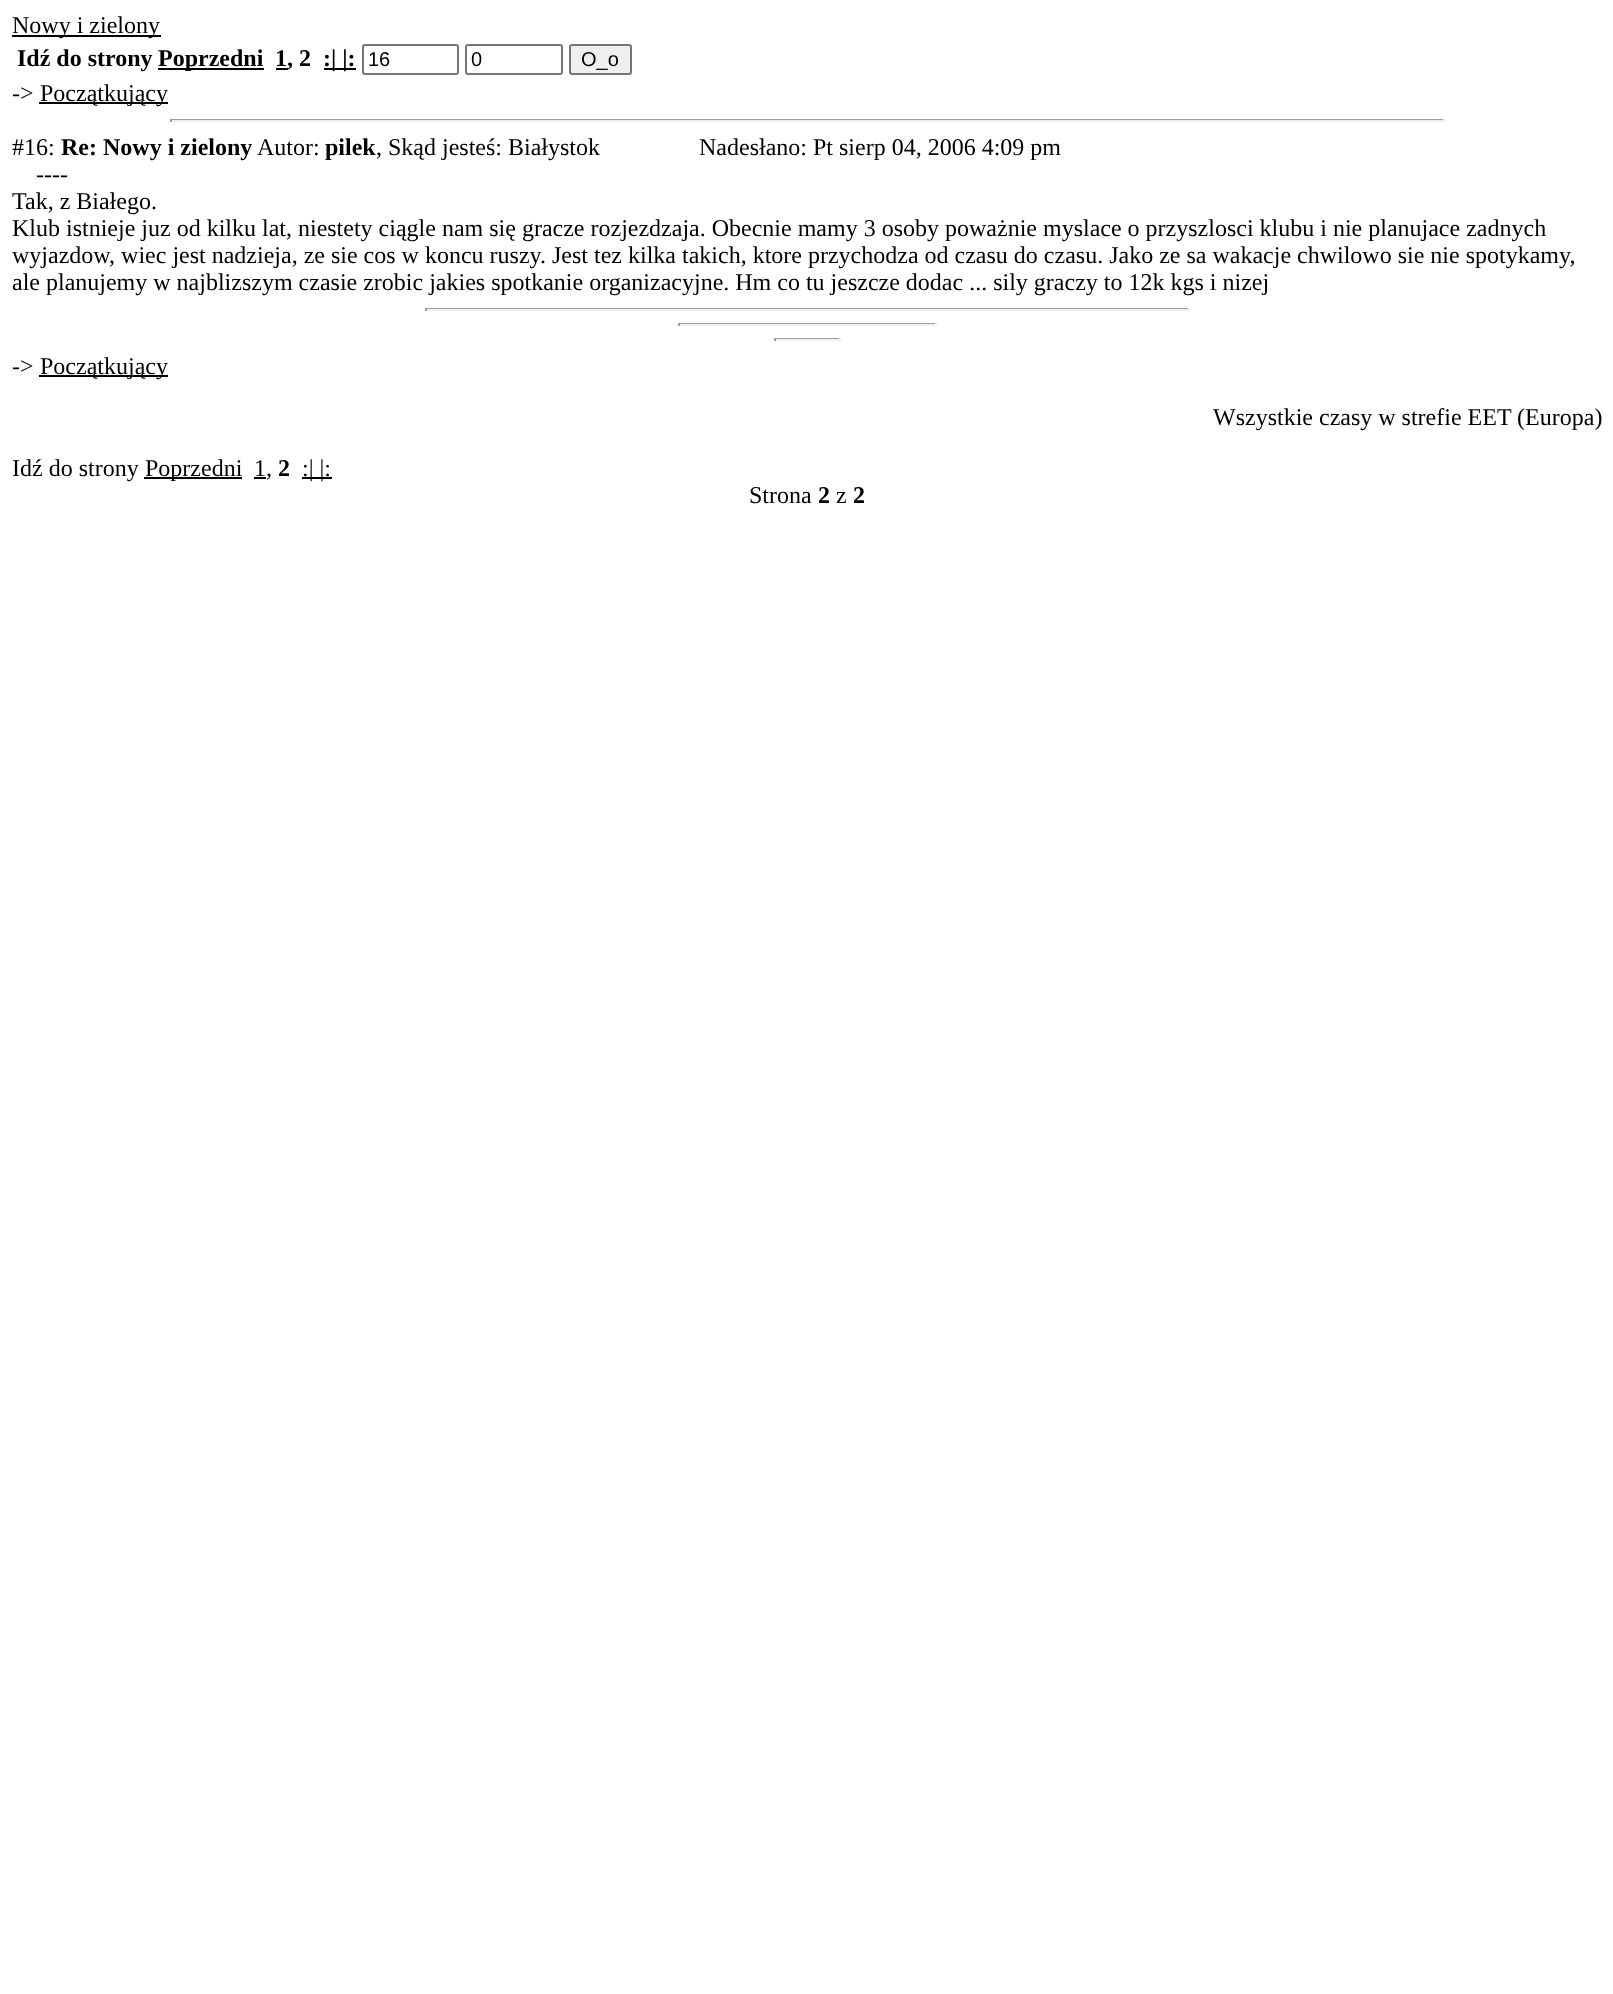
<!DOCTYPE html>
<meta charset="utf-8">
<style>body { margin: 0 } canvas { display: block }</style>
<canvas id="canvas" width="1613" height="1994"></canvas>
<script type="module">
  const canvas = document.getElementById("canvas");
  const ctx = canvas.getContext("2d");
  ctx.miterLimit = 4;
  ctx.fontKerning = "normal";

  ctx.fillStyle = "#ffffff";
  ctx.fillRect(0, 0, 1613, 1994);
  ctx.fillStyle = "#000000";
  ctx.fillRect(12, 35, 149, 2);
  ctx.font = "24px Liberation Serif";
  ctx.fillText("Nowy i zielony", 12, 33);
  ctx.font = "bold 24px Liberation Serif";
  ctx.fillText("Idź do strony", 17, 66);
  ctx.fillRect(158, 68, 106, 2);
  ctx.fillText("Poprzedni", 158, 66);
  ctx.fillRect(276, 68, 12, 2);
  ctx.fillText("1, 2", 275, 66);
  ctx.fillRect(324, 68, 32, 2);
  ctx.fillText(":| |:", 323, 66);
  ctx.beginPath();
  ctx.roundRect(363, 45, 95, 29, 2);
  ctx.strokeStyle = "#767676";
  ctx.lineWidth = 2;
  ctx.stroke();
  ctx.font = "20px Liberation Sans";
  ctx.fillText("16", 368, 66);
  ctx.beginPath();
  ctx.roundRect(466, 45, 96, 29, 2);
  ctx.stroke();
  ctx.fillText("0", 471, 66);
  ctx.fillStyle = "#efefef";
  ctx.beginPath();
  ctx.roundRect(570, 45, 61, 29, 2);
  ctx.fill();
  ctx.stroke();
  ctx.fillStyle = "#000000";
  ctx.fillText("O_o", 581, 66);
  ctx.font = "24px Liberation Serif";
  ctx.fillText("->", 12, 101);
  ctx.fillRect(39, 102, 129, 2);
  ctx.fillText("Początkujący", 40, 101);
  ctx.fillStyle = "#9f9f9f";
  ctx.fillRect(170, 119, 1275, 1);
  ctx.fillStyle = "#eeeeee";
  ctx.fillRect(1443, 119, 2, 3);
  ctx.fillRect(170, 120, 1275, 2);
  ctx.fillStyle = "#9f9f9f";
  ctx.fillRect(170, 119, 2, 3);
  ctx.fillStyle = "#000000";
  ctx.fillText("Nadesłano: Pt sierp 04, 2006 4:09 pm", 699, 155);
  ctx.fillText("----", 36, 182);
  ctx.fillText("Tak, z Białego.", 12, 209);
  ctx.fillText("Klub istnieje juz od kilku lat, niestety ciągle nam się gracze rozjezdzaja. Obecnie mamy 3 osoby poważnie myslace o przyszlosci klubu i nie planujace zadnych", 12, 236);
  ctx.fillText("wyjazdow, wiec jest nadzieja, ze sie cos w koncu ruszy. Jest tez kilka takich, ktore przychodza od czasu do czasu. Jako ze sa wakacje chwilowo sie nie spotykamy,", 12, 263);
  ctx.fillText("ale planujemy w najblizszym czasie zrobic jakies spotkanie organizacyjne. Hm co tu jeszcze dodac ... sily graczy to 12k kgs i nizej", 12, 290);
  ctx.fillStyle = "#9f9f9f";
  ctx.fillRect(425, 308, 765, 1);
  ctx.fillStyle = "#eeeeee";
  ctx.fillRect(1188, 308, 2, 3);
  ctx.fillRect(425, 309, 765, 2);
  ctx.fillStyle = "#9f9f9f";
  ctx.fillRect(425, 308, 2, 3);
  ctx.fillRect(678, 323, 258, 1);
  ctx.fillStyle = "#eeeeee";
  ctx.fillRect(935, 323, 2, 3);
  ctx.fillRect(678, 324, 258, 2);
  ctx.fillStyle = "#9f9f9f";
  ctx.fillRect(678, 323, 2, 3);
  ctx.fillRect(774, 338, 66, 1);
  ctx.fillStyle = "#eeeeee";
  ctx.fillRect(839, 338, 2, 3);
  ctx.fillRect(774, 339, 66, 2);
  ctx.fillStyle = "#9f9f9f";
  ctx.fillRect(774, 338, 2, 3);
  ctx.fillStyle = "#000000";
  ctx.fillText("->", 12, 374);
  ctx.fillRect(39, 375, 129, 2);
  ctx.fillText("Początkujący", 40, 374);
  ctx.fillText("Wszystkie czasy w strefie EET (Europa)", 1213, 425);
  ctx.fillText("Idź do strony", 12, 476);
  ctx.fillRect(144, 477, 98, 2);
  ctx.fillText("Poprzedni", 145, 476);
  ctx.fillRect(254, 477, 12, 2);
  ctx.fillText("1,", 254, 476);
  ctx.font = "bold 24px Liberation Serif";
  ctx.fillText("2", 278, 476);
  ctx.fillRect(302, 477, 30, 2);
  ctx.font = "24px Liberation Serif";
  ctx.fillText(":| |:", 302, 476);
  ctx.fillText("Strona", 749, 503);
  ctx.font = "bold 24px Liberation Serif";
  ctx.fillText("2", 818, 503);
  ctx.font = "24px Liberation Serif";
  ctx.fillText("z", 836, 503);
  ctx.font = "bold 24px Liberation Serif";
  ctx.fillText("2", 853, 503);
  ctx.font = "24px Liberation Serif";
  ctx.fillText("#16:", 12, 155);
  ctx.font = "bold 24px Liberation Serif";
  ctx.fillText("Re: Nowy i zielony", 61, 155);
  ctx.font = "24px Liberation Serif";
  ctx.fillText("Autor:", 257, 155);
  ctx.font = "bold 24px Liberation Serif";
  ctx.fillText("pilek", 325, 155);
  ctx.font = "24px Liberation Serif";
  ctx.fillText(", Skąd jesteś: Białystok", 376, 155);
</script>
